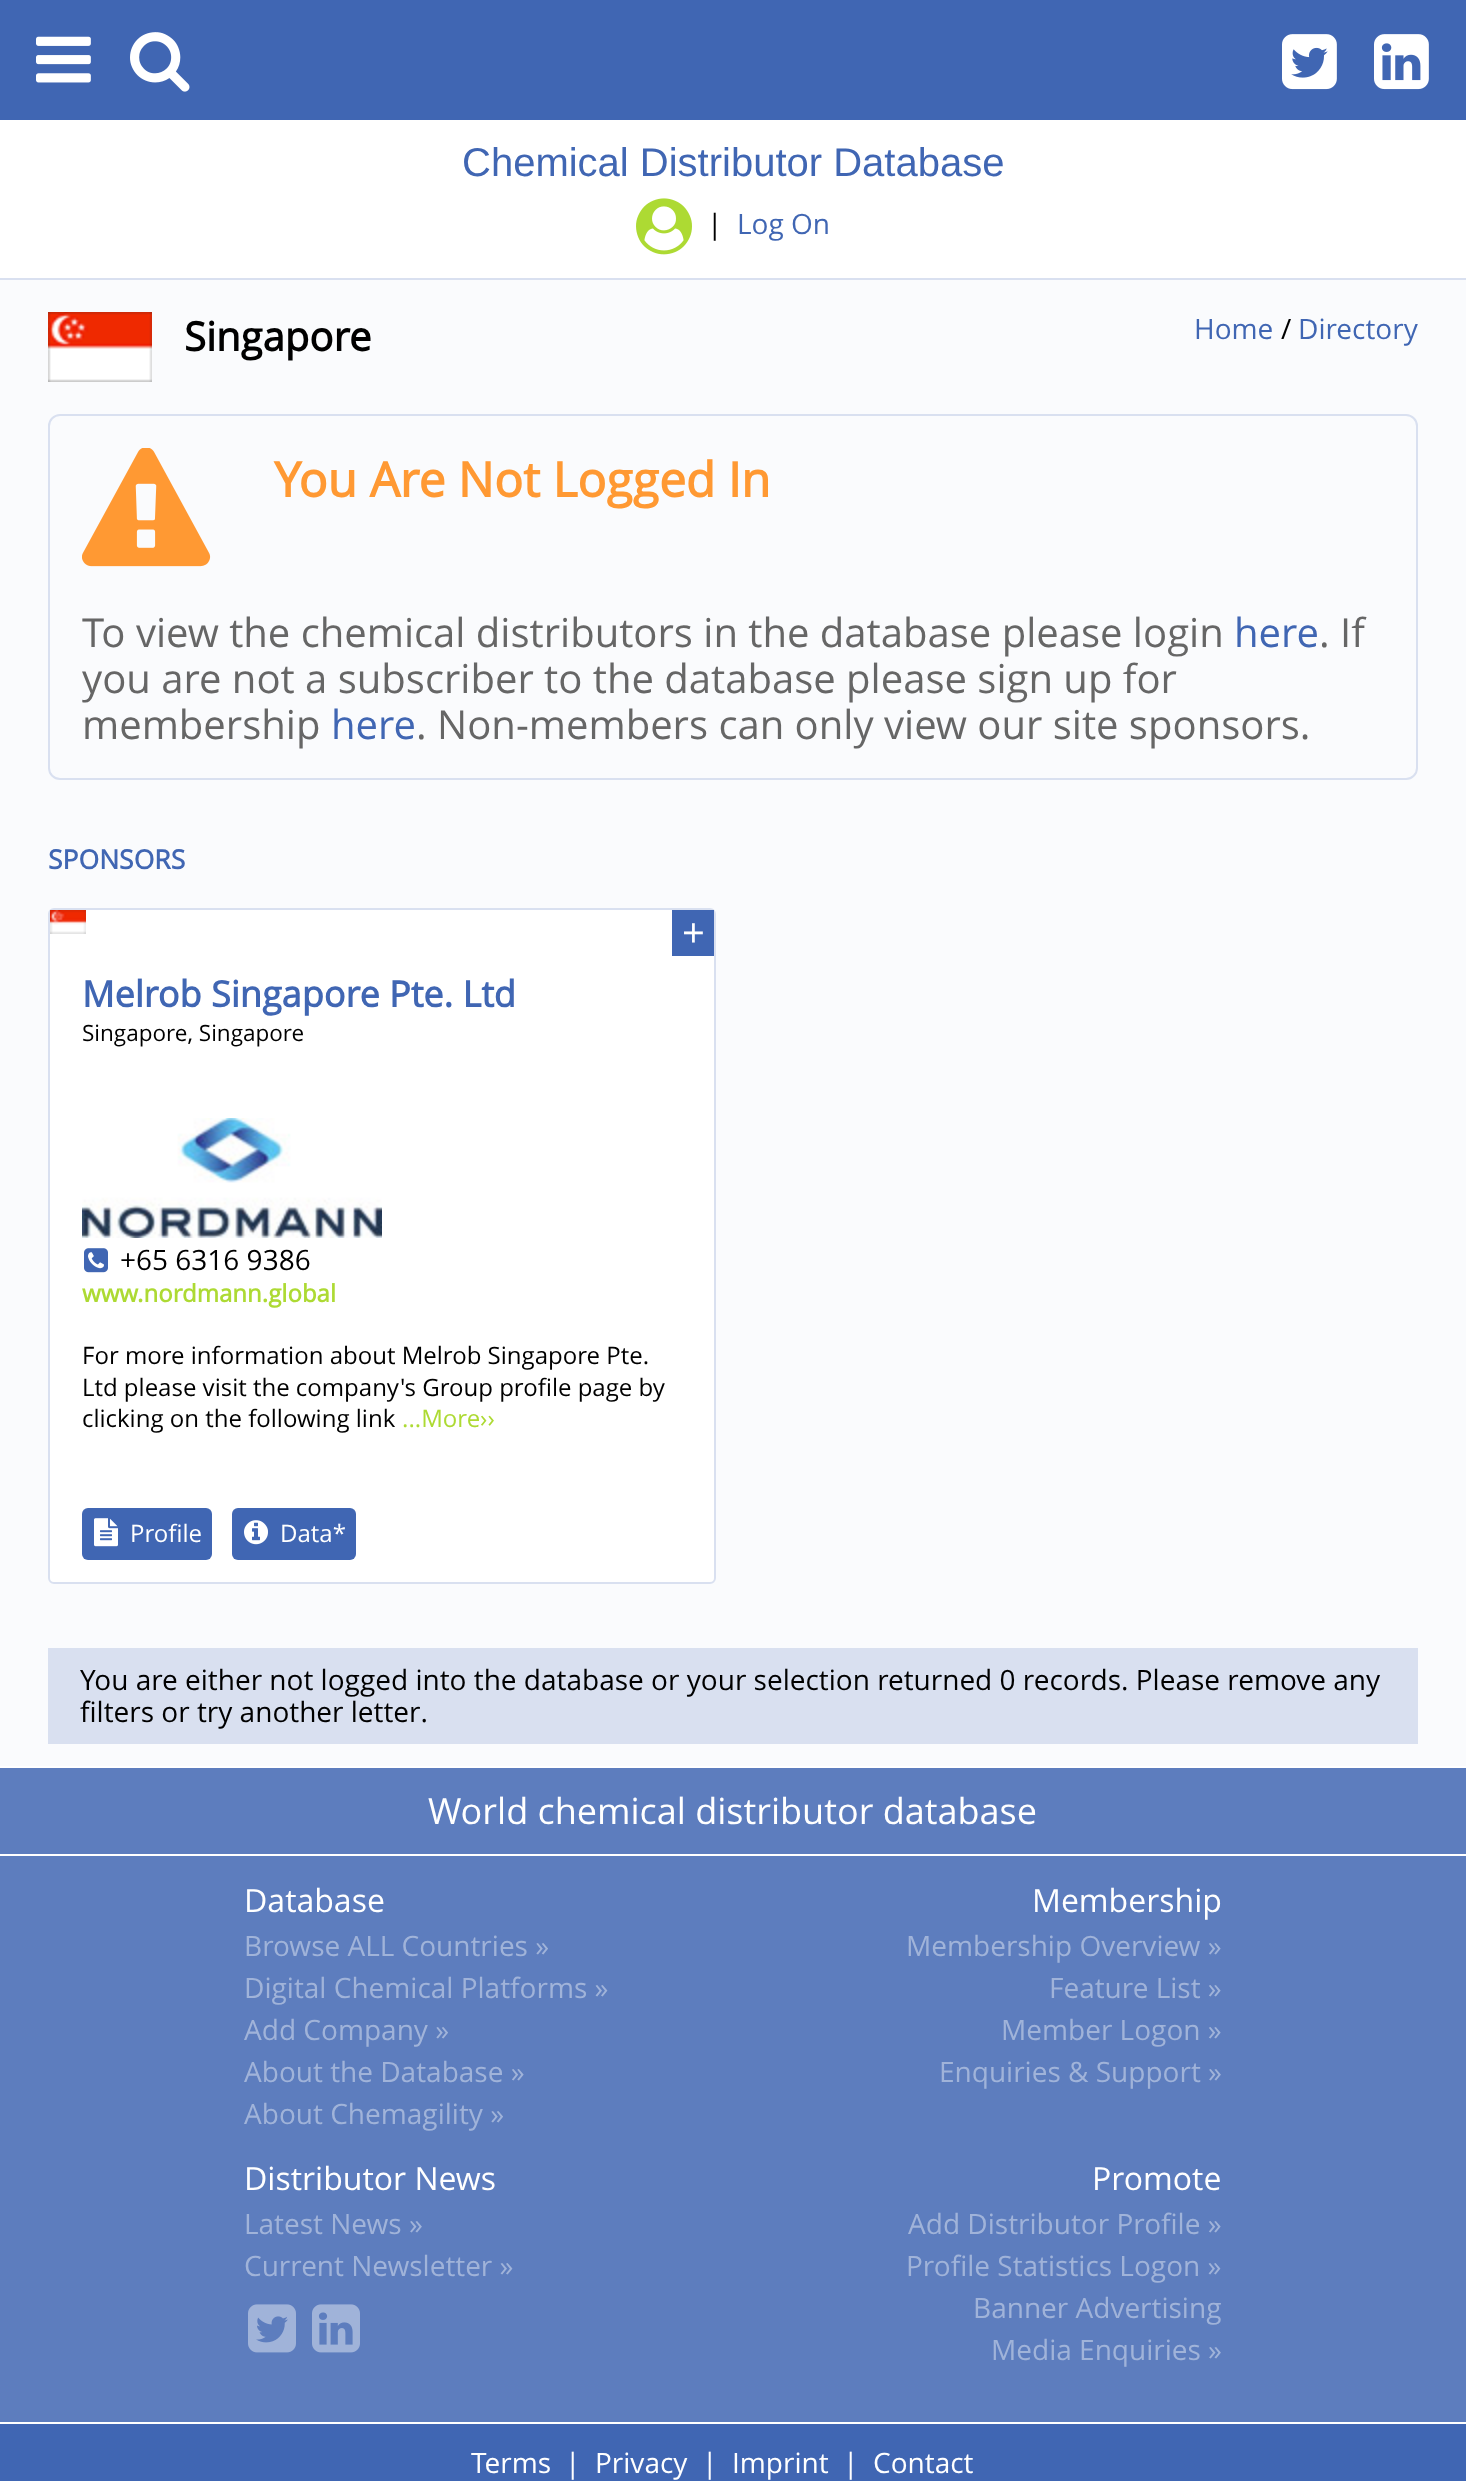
<!DOCTYPE html>
<meta charset="utf-8">
<style>body { margin: 0 } canvas { display: block }</style>
<canvas id="canvas" width="1466" height="2481"></canvas>
<script type="module">
  const canvas = document.getElementById("canvas");
  const ctx = canvas.getContext("2d");
  ctx.miterLimit = 4;
  ctx.fontKerning = "normal";
  async function loadImage(src) {
    const img = new Image();
    img.src = src;
    await img.decode();
    return img;
  }

  ctx.fillStyle = "#ffffff";
  ctx.fillRect(0, 0, 1466, 2481);
  ctx.fillStyle = "#4066b3";
  ctx.fillRect(0, 0, 1466, 120);
  ctx.drawImage(await loadImage("img1.png"), 36, 36, 55, 47);
  ctx.drawImage(await loadImage("img2.png"), 130, 32, 60, 60);
  ctx.drawImage(await loadImage("img3.png"), 1282, 34, 55, 56);
  ctx.drawImage(await loadImage("img4.png"), 1374, 34, 55, 56);
  ctx.fillStyle = "#d9e0f0";
  ctx.fillRect(0, 278, 1466, 2);
  ctx.font = "40px Liberation Sans";
  ctx.fillStyle = "#4066b3";
  ctx.fillText("Chemical Distributor Database", 462, 176);
  ctx.drawImage(await loadImage("img5.png"), 636, 198, 56, 57);
  ctx.font = "28px Open Sans";
  ctx.fillStyle = "#000000";
  ctx.fillText("|", 707, 234);
  ctx.fillStyle = "#4066b3";
  ctx.fillText("Log On", 737, 234);
  ctx.fillStyle = "#fafbfd";
  ctx.fillRect(0, 280, 1466, 1486);
  ctx.drawImage(await loadImage("img6.png"), 48, 312, 104, 70);
  ctx.font = "bold 40px Open Sans";
  ctx.fillStyle = "#000000";
  ctx.fillText("Singapore", 184, 351);
  ctx.font = "28px Open Sans";
  ctx.fillStyle = "#4066b3";
  ctx.fillText("Home", 1194, 339);
  ctx.fillStyle = "#000000";
  ctx.fillText("/", 1281, 339);
  ctx.fillStyle = "#4066b3";
  ctx.fillText("Directory", 1298, 339);
  ctx.beginPath();
  ctx.roundRect(49, 415, 1368, 364, 11);
  ctx.strokeStyle = "#d9e0f0";
  ctx.lineWidth = 2;
  ctx.stroke();
  ctx.drawImage(await loadImage("img7.png"), 82, 448, 129, 119);
  ctx.font = "bold 48px Open Sans";
  ctx.fillStyle = "#ff9933";
  ctx.fillText("You Are Not Logged In", 274, 497);
  ctx.font = "40px Open Sans";
  ctx.fillStyle = "#666666";
  ctx.fillText("To view the chemical distributors in the database please login", 82, 647);
  ctx.fillStyle = "#4066b3";
  ctx.fillText("here", 1234, 647);
  ctx.fillStyle = "#666666";
  ctx.fillText(". If", 1319, 647);
  ctx.fillText("you are not a subscriber to the database please sign up for", 82, 693);
  ctx.fillText("membership", 82, 739);
  ctx.fillStyle = "#4066b3";
  ctx.fillText("here", 331, 739);
  ctx.fillStyle = "#666666";
  ctx.fillText(". Non-members can only view our site sponsors.", 416, 739);
  ctx.font = "bold 26.5px Open Sans";
  ctx.fillStyle = "#4066b3";
  ctx.fillText("SPONSORS", 48, 869);
  ctx.fillStyle = "#ffffff";
  ctx.beginPath();
  ctx.roundRect(49, 909, 666, 674, 5);
  ctx.fill();
  ctx.stroke();
  ctx.drawImage(await loadImage("img8.png"), 50, 910, 36, 24);
  ctx.fillStyle = "#4066b3";
  ctx.fillRect(672, 910, 42, 46);
  ctx.font = "40px Open Sans";
  ctx.fillStyle = "#ffffff";
  ctx.fillText("+", 682, 947);
  ctx.font = "bold 36px Open Sans";
  ctx.fillStyle = "#4066b3";
  ctx.fillText("Melrob Singapore Pte. Ltd", 82, 1007);
  ctx.font = "22.5px Open Sans";
  ctx.fillStyle = "#000000";
  ctx.fillText("Singapore, Singapore", 82, 1041);
  ctx.drawImage(await loadImage("img9.png"), 82, 1118, 300, 120);
  ctx.drawImage(await loadImage("img10.png"), 84, 1248, 24, 25);
  ctx.font = "28px Open Sans";
  ctx.fillText("+65 6316 9386", 120, 1270);
  ctx.font = "bold 24px Open Sans";
  ctx.fillStyle = "#adda33";
  ctx.fillText("www.nordmann.global", 82, 1302);
  ctx.font = "24px Open Sans";
  ctx.fillStyle = "#000000";
  ctx.fillText("For more information about Melrob Singapore Pte.", 82, 1364);
  ctx.fillText("Ltd please visit the company's Group profile page by", 82, 1396);
  ctx.fillText("clicking on the following link", 82, 1427);
  ctx.fillStyle = "#adda33";
  ctx.fillText("...More››", 402, 1427);
  ctx.fillStyle = "#4066b3";
  ctx.beginPath();
  ctx.roundRect(82, 1508, 130, 52, 6);
  ctx.fill();
  ctx.drawImage(await loadImage("img11.png"), 94, 1518, 24, 29);
  ctx.fillStyle = "#ffffff";
  ctx.fillText("Profile", 130, 1542);
  ctx.fillStyle = "#4066b3";
  ctx.beginPath();
  ctx.roundRect(232, 1508, 124, 52, 6);
  ctx.fill();
  ctx.drawImage(await loadImage("img12.png"), 244, 1520, 24, 25);
  ctx.fillStyle = "#ffffff";
  ctx.fillText("Data*", 280, 1542);
  ctx.fillStyle = "#d9e0f0";
  ctx.fillRect(48, 1648, 1370, 96);
  ctx.font = "28px Open Sans";
  ctx.fillStyle = "#000000";
  ctx.fillText("You are either not logged into the database or your selection returned 0 records. Please remove any", 80, 1690);
  ctx.fillText("filters or try another letter.", 80, 1722);
  ctx.fillStyle = "#5d7dbe";
  ctx.fillRect(0, 1768, 1466, 654);
  ctx.fillStyle = "#ffffff";
  ctx.fillRect(0, 1854, 1466, 2);
  ctx.font = "36px Open Sans";
  ctx.fillText("World chemical distributor database", 428, 1824);
  ctx.font = "32px Open Sans";
  ctx.fillText("Database", 244, 1912);
  ctx.font = "28px Open Sans";
  ctx.fillStyle = "#a0b3d9";
  ctx.fillText("Browse ALL Countries »", 244, 1956);
  ctx.fillText("Digital Chemical Platforms »", 244, 1998);
  ctx.fillText("Add Company »", 244, 2040);
  ctx.fillText("About the Database »", 244, 2082);
  ctx.fillText("About Chemagility »", 244, 2124);
  ctx.font = "32px Open Sans";
  ctx.fillStyle = "#ffffff";
  ctx.fillText("Membership", 1032, 1912);
  ctx.font = "28px Open Sans";
  ctx.fillStyle = "#a0b3d9";
  ctx.fillText("Membership Overview »", 906, 1956);
  ctx.fillText("Feature List »", 1049, 1998);
  ctx.fillText("Member Logon »", 1001, 2040);
  ctx.fillText("Enquiries & Support »", 939, 2082);
  ctx.font = "32px Open Sans";
  ctx.fillStyle = "#ffffff";
  ctx.fillText("Distributor News", 244, 2190);
  ctx.font = "28px Open Sans";
  ctx.fillStyle = "#a0b3d9";
  ctx.fillText("Latest News »", 244, 2234);
  ctx.fillText("Current Newsletter »", 244, 2276);
  ctx.drawImage(await loadImage("img13.png"), 248, 2304, 48, 49);
  ctx.drawImage(await loadImage("img14.png"), 312, 2304, 48, 49);
  ctx.font = "32px Open Sans";
  ctx.fillStyle = "#ffffff";
  ctx.fillText("Promote", 1092, 2190);
  ctx.font = "28px Open Sans";
  ctx.fillStyle = "#a0b3d9";
  ctx.fillText("Add Distributor Profile »", 908, 2234);
  ctx.fillText("Profile Statistics Logon »", 906, 2276);
  ctx.fillText("Banner Advertising", 973, 2318);
  ctx.fillText("Media Enquiries »", 991, 2360);
  ctx.fillStyle = "#4066b3";
  ctx.fillRect(0, 2424, 1466, 57);
  ctx.fillStyle = "#ffffff";
  ctx.fillText("Terms", 471, 2473);
  ctx.fillText("|", 565, 2473);
  ctx.fillText("Privacy", 595, 2473);
  ctx.fillText("|", 702, 2473);
  ctx.fillText("Imprint", 732, 2473);
  ctx.fillText("|", 843, 2473);
  ctx.fillText("Contact", 873, 2473);
</script>
